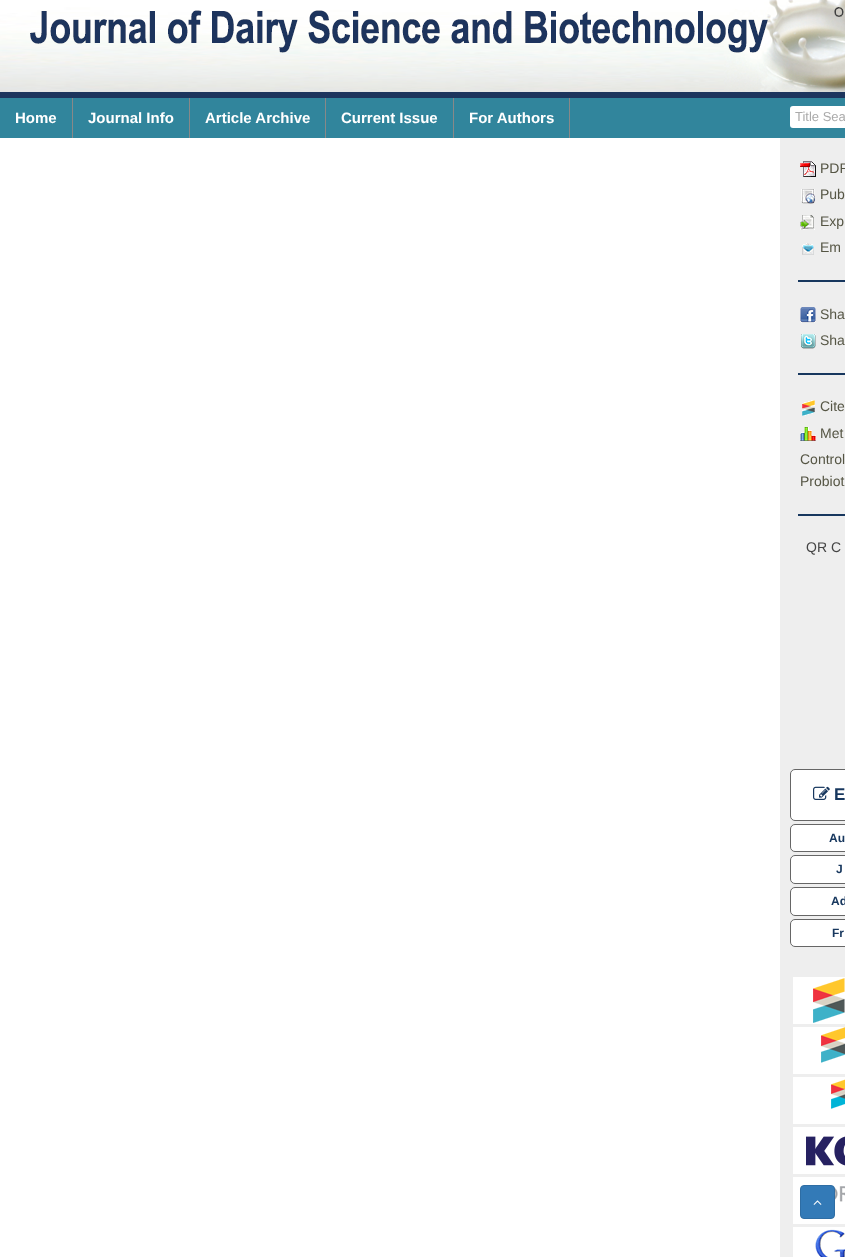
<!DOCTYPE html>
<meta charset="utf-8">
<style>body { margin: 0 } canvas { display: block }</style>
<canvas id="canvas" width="845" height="1257"></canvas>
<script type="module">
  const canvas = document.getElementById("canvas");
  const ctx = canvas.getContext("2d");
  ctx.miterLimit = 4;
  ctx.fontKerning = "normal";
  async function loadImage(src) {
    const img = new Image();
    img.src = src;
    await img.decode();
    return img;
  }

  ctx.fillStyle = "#ffffff";
  ctx.fillRect(0, 0, 845, 1257);
  ctx.drawImage(await loadImage("img1.png"), 0, 0, 845, 98);
  ctx.fillStyle = "#31859c";
  ctx.fillRect(0, 98, 845, 40);
  ctx.fillStyle = "#888888";
  ctx.fillRect(72, 98, 1, 40);
  ctx.font = "bold 15px Liberation Sans";
  ctx.fillStyle = "#ffffff";
  ctx.fillText("Home", 15, 123);
  ctx.fillStyle = "#888888";
  ctx.fillRect(189, 98, 1, 40);
  ctx.fillStyle = "#ffffff";
  ctx.fillText("Journal Info", 88, 123);
  ctx.fillStyle = "#888888";
  ctx.fillRect(325, 98, 1, 40);
  ctx.fillStyle = "#ffffff";
  ctx.fillText("Article Archive", 205, 123);
  ctx.fillStyle = "#888888";
  ctx.fillRect(453, 98, 1, 40);
  ctx.fillStyle = "#ffffff";
  ctx.fillText("Current Issue", 341, 123);
  ctx.fillStyle = "#888888";
  ctx.fillRect(569, 98, 1, 40);
  ctx.fillStyle = "#ffffff";
  ctx.fillText("For Authors", 469, 123);
  ctx.beginPath();
  ctx.roundRect(790, 106, 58, 22, 3);
  ctx.fill();
  ctx.font = "13px Liberation Sans";
  ctx.fillStyle = "#aaaaaa";
  ctx.fillText("Title Sea", 795, 121);
  ctx.fillStyle = "#eeeeee";
  ctx.fillRect(780, 138, 65, 1119);
  ctx.drawImage(await loadImage("img2.png"), 800, 161, 16, 16);
  ctx.font = "14px Liberation Sans";
  ctx.fillStyle = "#555544";
  ctx.fillText("PDF", 820, 173);
  ctx.drawImage(await loadImage("img3.png"), 801, 189, 14, 15);
  ctx.fillText("Pub", 820, 199);
  ctx.drawImage(await loadImage("img4.png"), 800, 215, 15, 15);
  ctx.fillText("Exp", 820, 226);
  ctx.drawImage(await loadImage("img5.png"), 802, 243, 12, 12);
  ctx.fillText("Em", 820, 252);
  ctx.fillStyle = "#17375e";
  ctx.fillRect(798, 280, 47, 2);
  ctx.drawImage(await loadImage("img6.png"), 800, 307, 16, 16);
  ctx.fillStyle = "#555544";
  ctx.fillText("Sha", 820, 319);
  ctx.drawImage(await loadImage("img7.png"), 801, 334, 15, 15);
  ctx.fillText("Sha", 820, 345);
  ctx.fillStyle = "#17375e";
  ctx.fillRect(798, 373, 47, 2);
  ctx.drawImage(await loadImage("img8.png"), 802, 400, 13, 16);
  ctx.fillStyle = "#555544";
  ctx.fillText("Cite", 820, 411);
  ctx.drawImage(await loadImage("img9.png"), 800, 427, 16, 14);
  ctx.fillText("Met", 820, 438);
  ctx.fillText("Control", 800, 464);
  ctx.fillText("Probiot", 800, 486);
  ctx.fillStyle = "#17375e";
  ctx.fillRect(798, 514, 47, 2);
  ctx.fillStyle = "#444444";
  ctx.fillText("QR C", 806, 552);
  ctx.fillStyle = "#ffffff";
  ctx.beginPath();
  ctx.roundRect(790.5, 769.5, 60, 51, 4.5);
  ctx.fill();
  ctx.strokeStyle = "#666666";
  ctx.stroke();
  ctx.drawImage(await loadImage("img10.png"), 813, 786, 17, 14);
  ctx.font = "bold 17px Liberation Sans";
  ctx.fillStyle = "#17375e";
  ctx.fillText("E", 834, 800);
  ctx.fillStyle = "#ffffff";
  ctx.beginPath();
  ctx.roundRect(790.5, 824.5, 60, 27, 4.5);
  ctx.fill();
  ctx.stroke();
  ctx.font = "bold 12px Liberation Sans";
  ctx.fillStyle = "#17375e";
  ctx.fillText("Au", 829, 842);
  ctx.fillStyle = "#ffffff";
  ctx.beginPath();
  ctx.roundRect(790.5, 855.5, 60, 28, 4.5);
  ctx.fill();
  ctx.stroke();
  ctx.fillStyle = "#17375e";
  ctx.fillText("J", 836, 873);
  ctx.fillStyle = "#ffffff";
  ctx.beginPath();
  ctx.roundRect(790.5, 887.5, 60, 28, 4.5);
  ctx.fill();
  ctx.stroke();
  ctx.fillStyle = "#17375e";
  ctx.fillText("Ad", 831, 905);
  ctx.fillStyle = "#ffffff";
  ctx.beginPath();
  ctx.roundRect(790.5, 919.5, 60, 27, 4.5);
  ctx.fill();
  ctx.stroke();
  ctx.fillStyle = "#17375e";
  ctx.fillText("Fr", 832, 937);
  ctx.drawImage(await loadImage("img11.png"), 793, 977, 52, 47);
  ctx.drawImage(await loadImage("img12.png"), 793, 1027, 52, 47);
  ctx.drawImage(await loadImage("img13.png"), 793, 1077, 52, 47);
  ctx.drawImage(await loadImage("img14.png"), 793, 1127, 52, 47);
  ctx.drawImage(await loadImage("img15.png"), 793, 1177, 52, 47);
  ctx.drawImage(await loadImage("img16.png"), 793, 1227, 52, 30);
  ctx.fillStyle = "#337ab7";
  ctx.beginPath();
  ctx.roundRect(800.5, 1185.5, 34, 33, 3.5);
  ctx.fill();
  ctx.strokeStyle = "#2e6da4";
  ctx.stroke();
  ctx.drawImage(await loadImage("img17.png"), 813, 1200, 9, 5);
</script>
